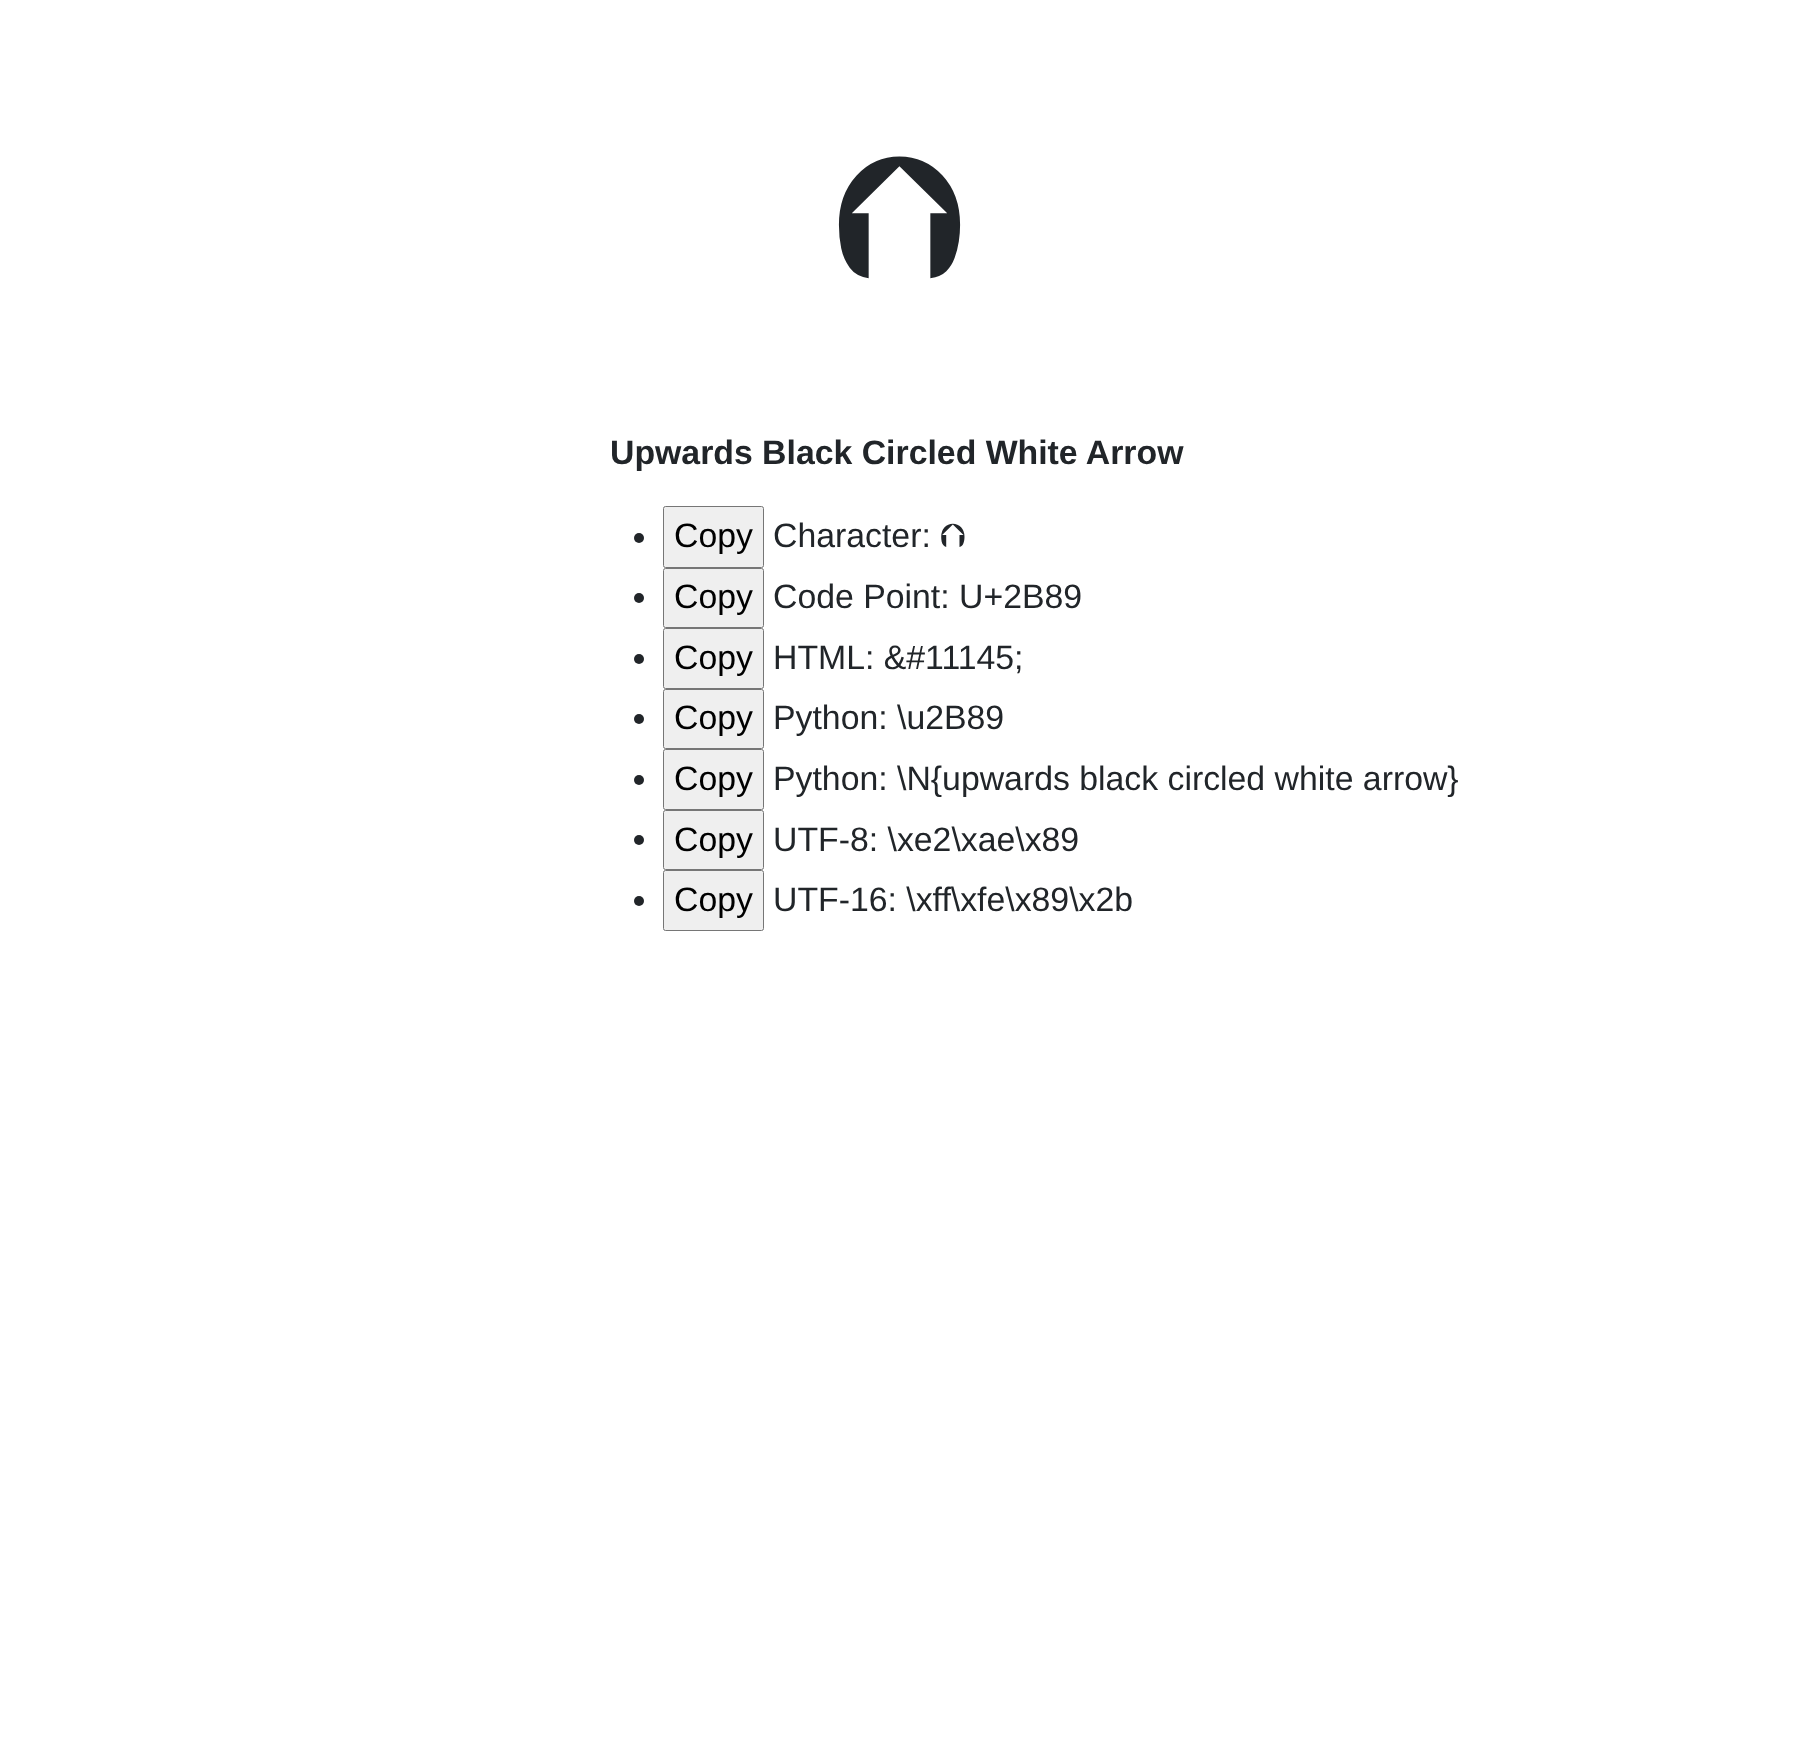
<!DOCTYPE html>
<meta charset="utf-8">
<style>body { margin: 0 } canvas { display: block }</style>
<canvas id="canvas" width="1793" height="1741"></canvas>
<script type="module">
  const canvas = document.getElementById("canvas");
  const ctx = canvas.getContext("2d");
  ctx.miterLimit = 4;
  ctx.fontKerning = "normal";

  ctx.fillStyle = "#ffffff";
  ctx.fillRect(0, 0, 1793, 1741);
  ctx.font = "bold 169px FreeSans";
  ctx.fillStyle = "#212529";
  ctx.fillText("⮉", 833, 278);
  ctx.font = "bold 33.8px Liberation Sans";
  ctx.fillText("Upwards Black Circled White Arrow", 610, 464);
  ctx.beginPath();
  ctx.arc(639, 538, 5, 0, Math.PI * 2);
  ctx.fill();
  ctx.fillStyle = "#efefef";
  ctx.beginPath();
  ctx.roundRect(663.5, 506.5, 100, 61, 2);
  ctx.fill();
  ctx.strokeStyle = "#767676";
  ctx.stroke();
  ctx.font = "33.8px Liberation Sans";
  ctx.fillStyle = "#000000";
  ctx.fillText("Copy", 674, 547);
  ctx.fillStyle = "#212529";
  ctx.fillText("Character:", 773, 547);
  ctx.font = "33.8px FreeSans";
  ctx.fillText("⮉", 940, 547);
  ctx.beginPath();
  ctx.arc(639, 598, 5, 0, Math.PI * 2);
  ctx.fill();
  ctx.fillStyle = "#efefef";
  ctx.beginPath();
  ctx.roundRect(663.5, 568.5, 100, 59, 2);
  ctx.fill();
  ctx.stroke();
  ctx.font = "33.8px Liberation Sans";
  ctx.fillStyle = "#000000";
  ctx.fillText("Copy", 674, 608);
  ctx.fillStyle = "#212529";
  ctx.fillText("Code Point: U+2B89", 773, 608);
  ctx.beginPath();
  ctx.arc(639, 659, 5, 0, Math.PI * 2);
  ctx.fill();
  ctx.fillStyle = "#efefef";
  ctx.beginPath();
  ctx.roundRect(663.5, 628.5, 100, 60, 2);
  ctx.fill();
  ctx.stroke();
  ctx.fillStyle = "#000000";
  ctx.fillText("Copy", 674, 669);
  ctx.fillStyle = "#212529";
  ctx.fillText("HTML: &#11145;", 773, 669);
  ctx.beginPath();
  ctx.arc(639, 719, 5, 0, Math.PI * 2);
  ctx.fill();
  ctx.fillStyle = "#efefef";
  ctx.beginPath();
  ctx.roundRect(663.5, 689.5, 100, 59, 2);
  ctx.fill();
  ctx.stroke();
  ctx.fillStyle = "#000000";
  ctx.fillText("Copy", 674, 729);
  ctx.fillStyle = "#212529";
  ctx.fillText("Python: \\u2B89", 773, 729);
  ctx.beginPath();
  ctx.arc(639, 780, 5, 0, Math.PI * 2);
  ctx.fill();
  ctx.fillStyle = "#efefef";
  ctx.beginPath();
  ctx.roundRect(663.5, 749.5, 100, 60, 2);
  ctx.fill();
  ctx.stroke();
  ctx.fillStyle = "#000000";
  ctx.fillText("Copy", 674, 790);
  ctx.fillStyle = "#212529";
  ctx.fillText("Python: \\N{upwards black circled white arrow}", 773, 790);
  ctx.beginPath();
  ctx.arc(639, 840, 5, 0, Math.PI * 2);
  ctx.fill();
  ctx.fillStyle = "#efefef";
  ctx.beginPath();
  ctx.roundRect(663.5, 810.5, 100, 59, 2);
  ctx.fill();
  ctx.stroke();
  ctx.fillStyle = "#000000";
  ctx.fillText("Copy", 674, 851);
  ctx.fillStyle = "#212529";
  ctx.fillText("UTF-8: \\xe2\\xae\\x89", 773, 851);
  ctx.beginPath();
  ctx.arc(639, 901, 5, 0, Math.PI * 2);
  ctx.fill();
  ctx.fillStyle = "#efefef";
  ctx.beginPath();
  ctx.roundRect(663.5, 870.5, 100, 60, 2);
  ctx.fill();
  ctx.stroke();
  ctx.fillStyle = "#000000";
  ctx.fillText("Copy", 674, 911);
  ctx.fillStyle = "#212529";
  ctx.fillText("UTF-16: \\xff\\xfe\\x89\\x2b", 773, 911);
</script>
